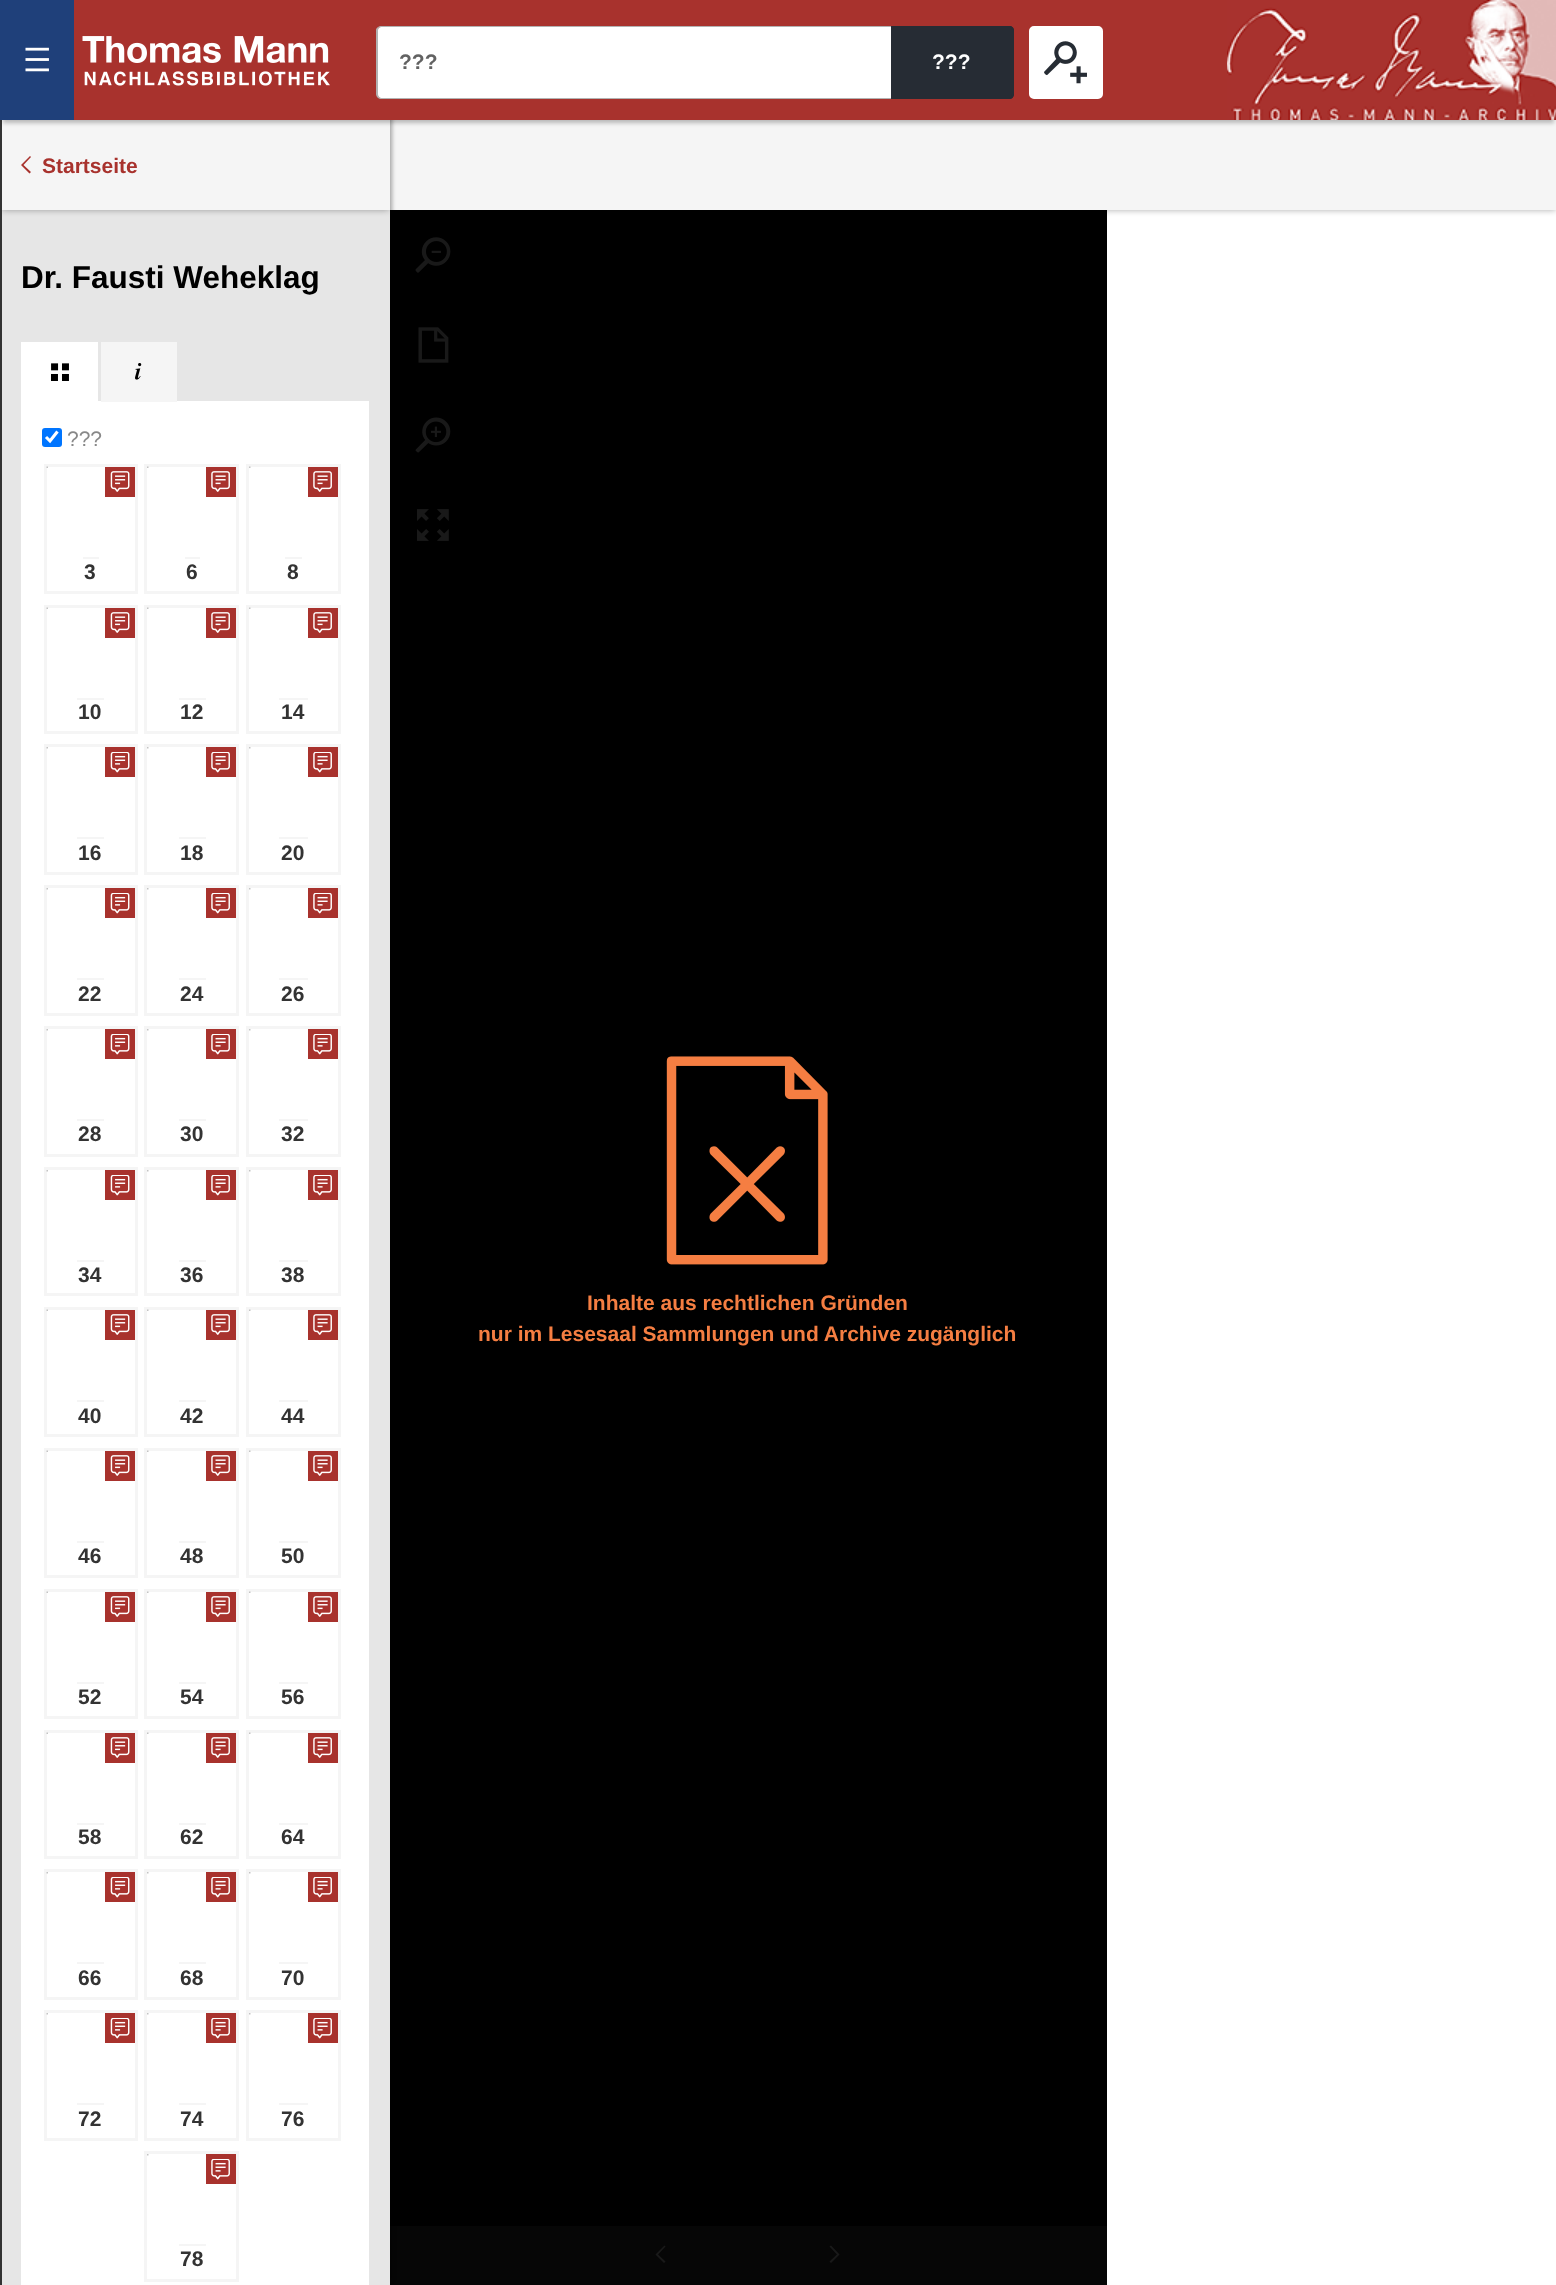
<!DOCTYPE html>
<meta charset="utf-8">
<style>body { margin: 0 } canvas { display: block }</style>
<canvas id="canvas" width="1556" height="2285"></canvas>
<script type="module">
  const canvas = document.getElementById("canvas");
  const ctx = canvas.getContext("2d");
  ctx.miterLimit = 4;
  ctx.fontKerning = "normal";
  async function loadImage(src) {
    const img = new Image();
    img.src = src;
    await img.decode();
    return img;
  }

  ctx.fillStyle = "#3d3d3d";
  ctx.fillRect(0, 0, 1556, 2285);
  ctx.fillStyle = "#000000";
  ctx.fillRect(390, 210, 717, 2013);
  ctx.fillStyle = "#ffffff";
  ctx.fillRect(1107, 210, 449, 2075);
  ctx.fillStyle = "rgba(0, 0, 0, 0.33)";
  ctx.filter = "blur(3px)";
  ctx.beginPath();
  ctx.rect(390, 123, 1166, 87);
  ctx.fill();
  ctx.filter = "none";
  ctx.fillStyle = "#f5f5f5";
  ctx.fillRect(390, 120, 1166, 90);
  ctx.fillStyle = "#000000";
  ctx.fillRect(389, 2223, 718, 3);
  ctx.drawImage(await loadImage("img15.png"), 415, 237, 36, 36);
  ctx.drawImage(await loadImage("img16.png"), 418, 327, 31, 36);
  ctx.drawImage(await loadImage("img17.png"), 415, 417, 36, 36);
  ctx.drawImage(await loadImage("img18.png"), 417, 509, 32, 32);
  ctx.fillStyle = "#ffffff";
  ctx.beginPath();
  ctx.moveTo(655.5, 2254.5);
  ctx.lineTo(664.5, 2245.5);
  ctx.lineTo(665.5, 2246.5);
  ctx.lineTo(658, 2254.5);
  ctx.lineTo(665.5, 2261.5);
  ctx.lineTo(664, 2263);
  ctx.closePath();
  ctx.fill();
  ctx.beginPath();
  ctx.moveTo(831, 2263);
  ctx.lineTo(829.5, 2261.5);
  ctx.lineTo(837, 2254.5);
  ctx.lineTo(829.5, 2246.5);
  ctx.lineTo(831, 2245.5);
  ctx.lineTo(839.5, 2254.5);
  ctx.closePath();
  ctx.fill();
  ctx.fillStyle = "rgba(0, 0, 0, 0.9)";
  ctx.fillRect(390, 237, 717, 2048);
  ctx.fillStyle = "rgba(0, 0, 0, 0.33)";
  ctx.filter = "blur(2px)";
  ctx.beginPath();
  ctx.rect(14, 6, 378, 2274);
  ctx.fill();
  ctx.filter = "none";
  ctx.fillStyle = "#e6e6e6";
  ctx.fillRect(2, 210, 388, 2075);
  ctx.save();
  ctx.beginPath();
  ctx.rect(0, 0, 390, 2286);
  ctx.clip();
  ctx.fillStyle = "rgba(0, 0, 0, 0.33)";
  ctx.filter = "blur(3px)";
  ctx.beginPath();
  ctx.rect(2, 123, 387, 87);
  ctx.fill();
  ctx.filter = "none";
  ctx.restore();
  ctx.fillStyle = "#333333";
  ctx.fillRect(0, 120, 2, 2165);
  ctx.fillStyle = "#f5f5f5";
  ctx.fillRect(2, 120, 388, 90);
  ctx.fillStyle = "rgba(0, 0, 0, 0.25)";
  ctx.filter = "blur(2px)";
  ctx.beginPath();
  ctx.rect(3, 9, 1551, 114);
  ctx.fill();
  ctx.filter = "none";
  ctx.fillStyle = "#a8322d";
  ctx.fillRect(74, 0, 1153, 120);
  ctx.fillStyle = "#1f407a";
  ctx.fillRect(0, 0, 74, 120);
  ctx.drawImage(await loadImage("img1.png"), 25, 47, 24, 25);
  ctx.drawImage(await loadImage("img2.png"), 82, 36, 248, 50);
  ctx.fillStyle = "#ffffff";
  ctx.beginPath();
  ctx.roundRect(378, 27, 513, 71, [3, 0, 0, 3]);
  ctx.fill();
  ctx.fillStyle = "#b2b2b2";
  ctx.beginPath();
  ctx.moveTo(381, 26);
  ctx.lineTo(891, 26);
  ctx.lineTo(891, 99);
  ctx.lineTo(381, 99);
  ctx.bezierCurveTo(379, 99, 376, 97, 376, 94);
  ctx.lineTo(376, 30);
  ctx.bezierCurveTo(376, 28, 379, 26, 381, 26);
  ctx.closePath();
  ctx.moveTo(381, 27);
  ctx.lineTo(891, 27);
  ctx.lineTo(891, 98);
  ctx.lineTo(381, 98);
  ctx.bezierCurveTo(379, 98, 378, 96, 378, 94);
  ctx.lineTo(378, 30);
  ctx.bezierCurveTo(378, 28, 379, 27, 381, 27);
  ctx.closePath();
  ctx.fill("evenodd");
  ctx.font = "bold 21px Liberation Sans";
  ctx.fillStyle = "#626262";
  ctx.fillText("???", 399, 69);
  ctx.fillStyle = "#262c34";
  ctx.beginPath();
  ctx.roundRect(891, 26, 123, 73, [0, 5, 5, 0]);
  ctx.fill();
  ctx.beginPath();
  ctx.moveTo(891, 26);
  ctx.lineTo(1010, 26);
  ctx.bezierCurveTo(1012, 26, 1014, 28, 1014, 30);
  ctx.lineTo(1014, 94);
  ctx.bezierCurveTo(1014, 97, 1012, 99, 1010, 99);
  ctx.lineTo(891, 99);
  ctx.closePath();
  ctx.moveTo(891, 27);
  ctx.lineTo(1010, 27);
  ctx.bezierCurveTo(1011, 27, 1012, 28, 1012, 30);
  ctx.lineTo(1012, 94);
  ctx.bezierCurveTo(1012, 96, 1011, 98, 1010, 98);
  ctx.lineTo(891, 98);
  ctx.closePath();
  ctx.fill("evenodd");
  ctx.fillStyle = "#ffffff";
  ctx.fillText("???", 932, 69);
  ctx.beginPath();
  ctx.roundRect(1030.5, 27.5, 71, 70, 3.5);
  ctx.fill();
  ctx.strokeStyle = "#ffffff";
  ctx.lineWidth = 3;
  ctx.stroke();
  ctx.drawImage(await loadImage("img3.png"), 1044, 41, 43, 43);
  ctx.drawImage(await loadImage("img4.png"), 1227, 0, 329, 120);
  ctx.fillStyle = "#a8322d";
  ctx.beginPath();
  ctx.moveTo(21, 165);
  ctx.lineTo(30, 156);
  ctx.lineTo(31, 157);
  ctx.lineTo(23.5, 165);
  ctx.lineTo(31, 172);
  ctx.lineTo(29.5, 173.5);
  ctx.closePath();
  ctx.fill();
  ctx.fillText("Startseite", 42, 173);
  ctx.font = "bold 31.5px Liberation Sans";
  ctx.fillStyle = "#000000";
  ctx.fillText("Dr. Fausti Weheklag", 21, 288);
  ctx.fillStyle = "#ffffff";
  ctx.fillRect(21, 342, 77, 59);
  ctx.drawImage(await loadImage("img5.png"), 51, 363, 18, 18);
  ctx.fillRect(21, 401, 348, 1884);
  ctx.fillStyle = "#f5f5f5";
  ctx.fillRect(101, 342, 76, 60);
  ctx.drawImage(await loadImage("img6.png"), 135, 363, 7, 17);
  ctx.fillStyle = "#0075ff";
  ctx.beginPath();
  ctx.roundRect(42, 428, 20, 19, 3);
  ctx.fill();
  ctx.beginPath();
  ctx.moveTo(46, 437);
  ctx.lineTo(50, 441);
  ctx.lineTo(57.5, 431.5);
  ctx.lineWidth = 3.1;
  ctx.stroke();
  ctx.font = "21px Liberation Sans";
  ctx.fillStyle = "#888888";
  ctx.fillText("???", 67, 446);
  ctx.strokeStyle = "#f5f5f5";
  ctx.lineWidth = 3;
  ctx.strokeRect(45.5, 465.5, 91, 127);
  ctx.fillStyle = "#a8322d";
  ctx.fillRect(105, 467, 30, 30);
  ctx.drawImage(await loadImage("img7.png"), 110, 471, 20, 21);
  ctx.drawImage(await loadImage("img8.png"), 46, 466, 2, 2);
  ctx.fillStyle = "#f5f5f5";
  ctx.fillRect(83, 557, 16, 2);
  ctx.font = "bold 21px Liberation Sans";
  ctx.fillStyle = "#333333";
  ctx.fillText("3", 84, 579);
  ctx.strokeRect(145.5, 465.5, 92, 127);
  ctx.fillStyle = "#a8322d";
  ctx.fillRect(206, 467, 30, 30);
  ctx.drawImage(await loadImage("img9.png"), 211, 471, 19, 21);
  ctx.drawImage(await loadImage("img10.png"), 147, 466, 2, 2);
  ctx.fillStyle = "#f5f5f5";
  ctx.fillRect(185, 557, 15, 2);
  ctx.fillStyle = "#333333";
  ctx.fillText("6", 186, 579);
  ctx.strokeRect(247.5, 465.5, 92, 127);
  ctx.fillStyle = "#a8322d";
  ctx.fillRect(308, 467, 30, 30);
  ctx.drawImage(await loadImage("img9.png"), 313, 471, 19, 21);
  ctx.drawImage(await loadImage("img10.png"), 249, 466, 2, 2);
  ctx.fillStyle = "#f5f5f5";
  ctx.fillRect(285, 557, 17, 2);
  ctx.fillStyle = "#333333";
  ctx.fillText("8", 287, 579);
  ctx.strokeRect(45.5, 606.5, 91, 126);
  ctx.fillStyle = "#a8322d";
  ctx.fillRect(105, 608, 30, 30);
  ctx.drawImage(await loadImage("img7.png"), 110, 612, 20, 21);
  ctx.drawImage(await loadImage("img8.png"), 46, 607, 2, 2);
  ctx.fillStyle = "#f5f5f5";
  ctx.fillRect(77, 698, 27, 2);
  ctx.fillStyle = "#333333";
  ctx.fillText("10", 78, 719);
  ctx.strokeRect(145.5, 606.5, 92, 126);
  ctx.fillStyle = "#a8322d";
  ctx.fillRect(206, 608, 30, 30);
  ctx.drawImage(await loadImage("img9.png"), 211, 612, 19, 21);
  ctx.drawImage(await loadImage("img10.png"), 147, 607, 2, 2);
  ctx.fillStyle = "#f5f5f5";
  ctx.fillRect(179, 698, 27, 2);
  ctx.fillStyle = "#333333";
  ctx.fillText("12", 180, 719);
  ctx.strokeRect(247.5, 606.5, 92, 126);
  ctx.fillStyle = "#a8322d";
  ctx.fillRect(308, 608, 30, 30);
  ctx.drawImage(await loadImage("img9.png"), 313, 612, 19, 21);
  ctx.drawImage(await loadImage("img10.png"), 249, 607, 2, 2);
  ctx.fillStyle = "#f5f5f5";
  ctx.fillRect(279, 698, 29, 2);
  ctx.fillStyle = "#333333";
  ctx.fillText("14", 281, 719);
  ctx.strokeRect(45.5, 745.5, 91, 128);
  ctx.fillStyle = "#a8322d";
  ctx.fillRect(105, 747, 30, 30);
  ctx.drawImage(await loadImage("img11.png"), 110, 752, 20, 21);
  ctx.drawImage(await loadImage("img12.png"), 46, 747, 2, 2);
  ctx.fillStyle = "#f5f5f5";
  ctx.fillRect(77, 837, 27, 2);
  ctx.fillStyle = "#333333";
  ctx.fillText("16", 78, 860);
  ctx.strokeRect(145.5, 745.5, 92, 128);
  ctx.fillStyle = "#a8322d";
  ctx.fillRect(206, 747, 30, 30);
  ctx.drawImage(await loadImage("img13.png"), 211, 752, 19, 21);
  ctx.drawImage(await loadImage("img14.png"), 147, 747, 2, 2);
  ctx.fillStyle = "#f5f5f5";
  ctx.fillRect(179, 837, 27, 2);
  ctx.fillStyle = "#333333";
  ctx.fillText("18", 180, 860);
  ctx.strokeRect(247.5, 745.5, 92, 128);
  ctx.fillStyle = "#a8322d";
  ctx.fillRect(308, 747, 30, 30);
  ctx.drawImage(await loadImage("img13.png"), 313, 752, 19, 21);
  ctx.drawImage(await loadImage("img14.png"), 249, 747, 2, 2);
  ctx.fillStyle = "#f5f5f5";
  ctx.fillRect(279, 837, 29, 2);
  ctx.fillStyle = "#333333";
  ctx.fillText("20", 281, 860);
  ctx.strokeRect(45.5, 886.5, 91, 128);
  ctx.fillStyle = "#a8322d";
  ctx.fillRect(105, 888, 30, 30);
  ctx.drawImage(await loadImage("img11.png"), 110, 893, 20, 21);
  ctx.drawImage(await loadImage("img12.png"), 46, 888, 2, 2);
  ctx.fillStyle = "#f5f5f5";
  ctx.fillRect(77, 978, 27, 2);
  ctx.fillStyle = "#333333";
  ctx.fillText("22", 78, 1001);
  ctx.strokeRect(145.5, 886.5, 92, 128);
  ctx.fillStyle = "#a8322d";
  ctx.fillRect(206, 888, 30, 30);
  ctx.drawImage(await loadImage("img13.png"), 211, 893, 19, 21);
  ctx.drawImage(await loadImage("img14.png"), 147, 888, 2, 2);
  ctx.fillStyle = "#f5f5f5";
  ctx.fillRect(179, 978, 27, 2);
  ctx.fillStyle = "#333333";
  ctx.fillText("24", 180, 1001);
  ctx.strokeRect(247.5, 886.5, 92, 128);
  ctx.fillStyle = "#a8322d";
  ctx.fillRect(308, 888, 30, 30);
  ctx.drawImage(await loadImage("img13.png"), 313, 893, 19, 21);
  ctx.drawImage(await loadImage("img14.png"), 249, 888, 2, 2);
  ctx.fillStyle = "#f5f5f5";
  ctx.fillRect(279, 978, 29, 2);
  ctx.fillStyle = "#333333";
  ctx.fillText("26", 281, 1001);
  ctx.strokeRect(45.5, 1027.5, 91, 128);
  ctx.fillStyle = "#a8322d";
  ctx.fillRect(105, 1029, 30, 30);
  ctx.drawImage(await loadImage("img11.png"), 110, 1034, 20, 21);
  ctx.drawImage(await loadImage("img12.png"), 46, 1029, 2, 2);
  ctx.fillStyle = "#f5f5f5";
  ctx.fillRect(77, 1119, 27, 2);
  ctx.fillStyle = "#333333";
  ctx.fillText("28", 78, 1141);
  ctx.strokeRect(145.5, 1027.5, 92, 128);
  ctx.fillStyle = "#a8322d";
  ctx.fillRect(206, 1029, 30, 30);
  ctx.drawImage(await loadImage("img13.png"), 211, 1034, 19, 21);
  ctx.drawImage(await loadImage("img14.png"), 147, 1029, 2, 2);
  ctx.fillStyle = "#f5f5f5";
  ctx.fillRect(179, 1119, 27, 2);
  ctx.fillStyle = "#333333";
  ctx.fillText("30", 180, 1141);
  ctx.strokeRect(247.5, 1027.5, 92, 128);
  ctx.fillStyle = "#a8322d";
  ctx.fillRect(308, 1029, 30, 30);
  ctx.drawImage(await loadImage("img13.png"), 313, 1034, 19, 21);
  ctx.drawImage(await loadImage("img14.png"), 249, 1029, 2, 2);
  ctx.fillStyle = "#f5f5f5";
  ctx.fillRect(279, 1119, 29, 2);
  ctx.fillStyle = "#333333";
  ctx.fillText("32", 281, 1141);
  ctx.strokeRect(45.5, 1168.5, 91, 126);
  ctx.fillStyle = "#a8322d";
  ctx.fillRect(105, 1170, 30, 30);
  ctx.drawImage(await loadImage("img11.png"), 110, 1175, 20, 21);
  ctx.drawImage(await loadImage("img12.png"), 46, 1170, 2, 2);
  ctx.fillStyle = "#f5f5f5";
  ctx.fillRect(77, 1260, 27, 2);
  ctx.fillStyle = "#333333";
  ctx.fillText("34", 78, 1282);
  ctx.strokeRect(145.5, 1168.5, 92, 126);
  ctx.fillStyle = "#a8322d";
  ctx.fillRect(206, 1170, 30, 30);
  ctx.drawImage(await loadImage("img13.png"), 211, 1175, 19, 21);
  ctx.drawImage(await loadImage("img14.png"), 147, 1170, 2, 2);
  ctx.fillStyle = "#f5f5f5";
  ctx.fillRect(179, 1260, 27, 2);
  ctx.fillStyle = "#333333";
  ctx.fillText("36", 180, 1282);
  ctx.strokeRect(247.5, 1168.5, 92, 126);
  ctx.fillStyle = "#a8322d";
  ctx.fillRect(308, 1170, 30, 30);
  ctx.drawImage(await loadImage("img13.png"), 313, 1175, 19, 21);
  ctx.drawImage(await loadImage("img14.png"), 249, 1170, 2, 2);
  ctx.fillStyle = "#f5f5f5";
  ctx.fillRect(279, 1260, 29, 2);
  ctx.fillStyle = "#333333";
  ctx.fillText("38", 281, 1282);
  ctx.strokeRect(45.5, 1308.5, 91, 127);
  ctx.fillStyle = "#a8322d";
  ctx.fillRect(105, 1310, 30, 30);
  ctx.drawImage(await loadImage("img7.png"), 110, 1314, 20, 21);
  ctx.drawImage(await loadImage("img8.png"), 46, 1309, 2, 2);
  ctx.fillStyle = "#f5f5f5";
  ctx.fillRect(77, 1400, 27, 2);
  ctx.fillStyle = "#333333";
  ctx.fillText("40", 78, 1423);
  ctx.strokeRect(145.5, 1308.5, 92, 127);
  ctx.fillStyle = "#a8322d";
  ctx.fillRect(206, 1310, 30, 30);
  ctx.drawImage(await loadImage("img9.png"), 211, 1314, 19, 21);
  ctx.drawImage(await loadImage("img10.png"), 147, 1309, 2, 2);
  ctx.fillStyle = "#f5f5f5";
  ctx.fillRect(179, 1400, 27, 2);
  ctx.fillStyle = "#333333";
  ctx.fillText("42", 180, 1423);
  ctx.strokeRect(247.5, 1308.5, 92, 127);
  ctx.fillStyle = "#a8322d";
  ctx.fillRect(308, 1310, 30, 30);
  ctx.drawImage(await loadImage("img9.png"), 313, 1314, 19, 21);
  ctx.drawImage(await loadImage("img10.png"), 249, 1309, 2, 2);
  ctx.fillStyle = "#f5f5f5";
  ctx.fillRect(279, 1400, 29, 2);
  ctx.fillStyle = "#333333";
  ctx.fillText("44", 281, 1423);
  ctx.strokeRect(45.5, 1449.5, 91, 127);
  ctx.fillStyle = "#a8322d";
  ctx.fillRect(105, 1451, 30, 30);
  ctx.drawImage(await loadImage("img7.png"), 110, 1455, 20, 21);
  ctx.drawImage(await loadImage("img8.png"), 46, 1450, 2, 2);
  ctx.fillStyle = "#f5f5f5";
  ctx.fillRect(77, 1541, 27, 2);
  ctx.fillStyle = "#333333";
  ctx.fillText("46", 78, 1563);
  ctx.strokeRect(145.5, 1449.5, 92, 127);
  ctx.fillStyle = "#a8322d";
  ctx.fillRect(206, 1451, 30, 30);
  ctx.drawImage(await loadImage("img9.png"), 211, 1455, 19, 21);
  ctx.drawImage(await loadImage("img10.png"), 147, 1450, 2, 2);
  ctx.fillStyle = "#f5f5f5";
  ctx.fillRect(179, 1541, 27, 2);
  ctx.fillStyle = "#333333";
  ctx.fillText("48", 180, 1563);
  ctx.strokeRect(247.5, 1449.5, 92, 127);
  ctx.fillStyle = "#a8322d";
  ctx.fillRect(308, 1451, 30, 30);
  ctx.drawImage(await loadImage("img9.png"), 313, 1455, 19, 21);
  ctx.drawImage(await loadImage("img10.png"), 249, 1450, 2, 2);
  ctx.fillStyle = "#f5f5f5";
  ctx.fillRect(279, 1541, 29, 2);
  ctx.fillStyle = "#333333";
  ctx.fillText("50", 281, 1563);
  ctx.strokeRect(45.5, 1590.5, 91, 127);
  ctx.fillStyle = "#a8322d";
  ctx.fillRect(105, 1592, 30, 30);
  ctx.drawImage(await loadImage("img7.png"), 110, 1596, 20, 21);
  ctx.drawImage(await loadImage("img8.png"), 46, 1591, 2, 2);
  ctx.fillStyle = "#f5f5f5";
  ctx.fillRect(77, 1682, 27, 2);
  ctx.fillStyle = "#333333";
  ctx.fillText("52", 78, 1704);
  ctx.strokeRect(145.5, 1590.5, 92, 127);
  ctx.fillStyle = "#a8322d";
  ctx.fillRect(206, 1592, 30, 30);
  ctx.drawImage(await loadImage("img9.png"), 211, 1596, 19, 21);
  ctx.drawImage(await loadImage("img10.png"), 147, 1591, 2, 2);
  ctx.fillStyle = "#f5f5f5";
  ctx.fillRect(179, 1682, 27, 2);
  ctx.fillStyle = "#333333";
  ctx.fillText("54", 180, 1704);
  ctx.strokeRect(247.5, 1590.5, 92, 127);
  ctx.fillStyle = "#a8322d";
  ctx.fillRect(308, 1592, 30, 30);
  ctx.drawImage(await loadImage("img9.png"), 313, 1596, 19, 21);
  ctx.drawImage(await loadImage("img10.png"), 249, 1591, 2, 2);
  ctx.fillStyle = "#f5f5f5";
  ctx.fillRect(279, 1682, 29, 2);
  ctx.fillStyle = "#333333";
  ctx.fillText("56", 281, 1704);
  ctx.strokeRect(45.5, 1731.5, 91, 126);
  ctx.fillStyle = "#a8322d";
  ctx.fillRect(105, 1733, 30, 30);
  ctx.drawImage(await loadImage("img7.png"), 110, 1737, 20, 21);
  ctx.drawImage(await loadImage("img8.png"), 46, 1732, 2, 2);
  ctx.fillStyle = "#f5f5f5";
  ctx.fillRect(77, 1823, 27, 2);
  ctx.fillStyle = "#333333";
  ctx.fillText("58", 78, 1844);
  ctx.strokeRect(145.5, 1731.5, 92, 126);
  ctx.fillStyle = "#a8322d";
  ctx.fillRect(206, 1733, 30, 30);
  ctx.drawImage(await loadImage("img9.png"), 211, 1737, 19, 21);
  ctx.drawImage(await loadImage("img10.png"), 147, 1732, 2, 2);
  ctx.fillStyle = "#f5f5f5";
  ctx.fillRect(179, 1823, 27, 2);
  ctx.fillStyle = "#333333";
  ctx.fillText("62", 180, 1844);
  ctx.strokeRect(247.5, 1731.5, 92, 126);
  ctx.fillStyle = "#a8322d";
  ctx.fillRect(308, 1733, 30, 30);
  ctx.drawImage(await loadImage("img9.png"), 313, 1737, 19, 21);
  ctx.drawImage(await loadImage("img10.png"), 249, 1732, 2, 2);
  ctx.fillStyle = "#f5f5f5";
  ctx.fillRect(279, 1823, 29, 2);
  ctx.fillStyle = "#333333";
  ctx.fillText("64", 281, 1844);
  ctx.strokeRect(45.5, 1870.5, 91, 128);
  ctx.fillStyle = "#a8322d";
  ctx.fillRect(105, 1872, 30, 30);
  ctx.drawImage(await loadImage("img11.png"), 110, 1877, 20, 21);
  ctx.drawImage(await loadImage("img12.png"), 46, 1872, 2, 2);
  ctx.fillStyle = "#f5f5f5";
  ctx.fillRect(77, 1962, 27, 2);
  ctx.fillStyle = "#333333";
  ctx.fillText("66", 78, 1985);
  ctx.strokeRect(145.5, 1870.5, 92, 128);
  ctx.fillStyle = "#a8322d";
  ctx.fillRect(206, 1872, 30, 30);
  ctx.drawImage(await loadImage("img13.png"), 211, 1877, 19, 21);
  ctx.drawImage(await loadImage("img14.png"), 147, 1872, 2, 2);
  ctx.fillStyle = "#f5f5f5";
  ctx.fillRect(179, 1962, 27, 2);
  ctx.fillStyle = "#333333";
  ctx.fillText("68", 180, 1985);
  ctx.strokeRect(247.5, 1870.5, 92, 128);
  ctx.fillStyle = "#a8322d";
  ctx.fillRect(308, 1872, 30, 30);
  ctx.drawImage(await loadImage("img13.png"), 313, 1877, 19, 21);
  ctx.drawImage(await loadImage("img14.png"), 249, 1872, 2, 2);
  ctx.fillStyle = "#f5f5f5";
  ctx.fillRect(279, 1962, 29, 2);
  ctx.fillStyle = "#333333";
  ctx.fillText("70", 281, 1985);
  ctx.strokeRect(45.5, 2011.5, 91, 128);
  ctx.fillStyle = "#a8322d";
  ctx.fillRect(105, 2013, 30, 30);
  ctx.drawImage(await loadImage("img11.png"), 110, 2018, 20, 21);
  ctx.drawImage(await loadImage("img12.png"), 46, 2013, 2, 2);
  ctx.fillStyle = "#f5f5f5";
  ctx.fillRect(77, 2103, 27, 2);
  ctx.fillStyle = "#333333";
  ctx.fillText("72", 78, 2126);
  ctx.strokeRect(145.5, 2011.5, 92, 128);
  ctx.fillStyle = "#a8322d";
  ctx.fillRect(206, 2013, 30, 30);
  ctx.drawImage(await loadImage("img13.png"), 211, 2018, 19, 21);
  ctx.drawImage(await loadImage("img14.png"), 147, 2013, 2, 2);
  ctx.fillStyle = "#f5f5f5";
  ctx.fillRect(179, 2103, 27, 2);
  ctx.fillStyle = "#333333";
  ctx.fillText("74", 180, 2126);
  ctx.strokeRect(247.5, 2011.5, 92, 128);
  ctx.fillStyle = "#a8322d";
  ctx.fillRect(308, 2013, 30, 30);
  ctx.drawImage(await loadImage("img13.png"), 313, 2018, 19, 21);
  ctx.drawImage(await loadImage("img14.png"), 249, 2013, 2, 2);
  ctx.fillStyle = "#f5f5f5";
  ctx.fillRect(279, 2103, 29, 2);
  ctx.fillStyle = "#333333";
  ctx.fillText("76", 281, 2126);
  ctx.strokeRect(145.5, 2152.5, 92, 128);
  ctx.fillStyle = "#a8322d";
  ctx.fillRect(206, 2154, 30, 30);
  ctx.drawImage(await loadImage("img13.png"), 211, 2159, 19, 21);
  ctx.drawImage(await loadImage("img14.png"), 147, 2154, 2, 2);
  ctx.fillStyle = "#f5f5f5";
  ctx.fillRect(179, 2244, 27, 2);
  ctx.fillStyle = "#333333";
  ctx.fillText("78", 180, 2266);
  ctx.drawImage(await loadImage("img19.png"), 666, 1056, 162, 209);
  ctx.fillStyle = "#f57e42";
  ctx.fillText("Inhalte aus rechtlichen Gründen", 587, 1310);
  ctx.fillText("nur im Lesesaal Sammlungen und Archive zugänglich", 478, 1341);
</script>
